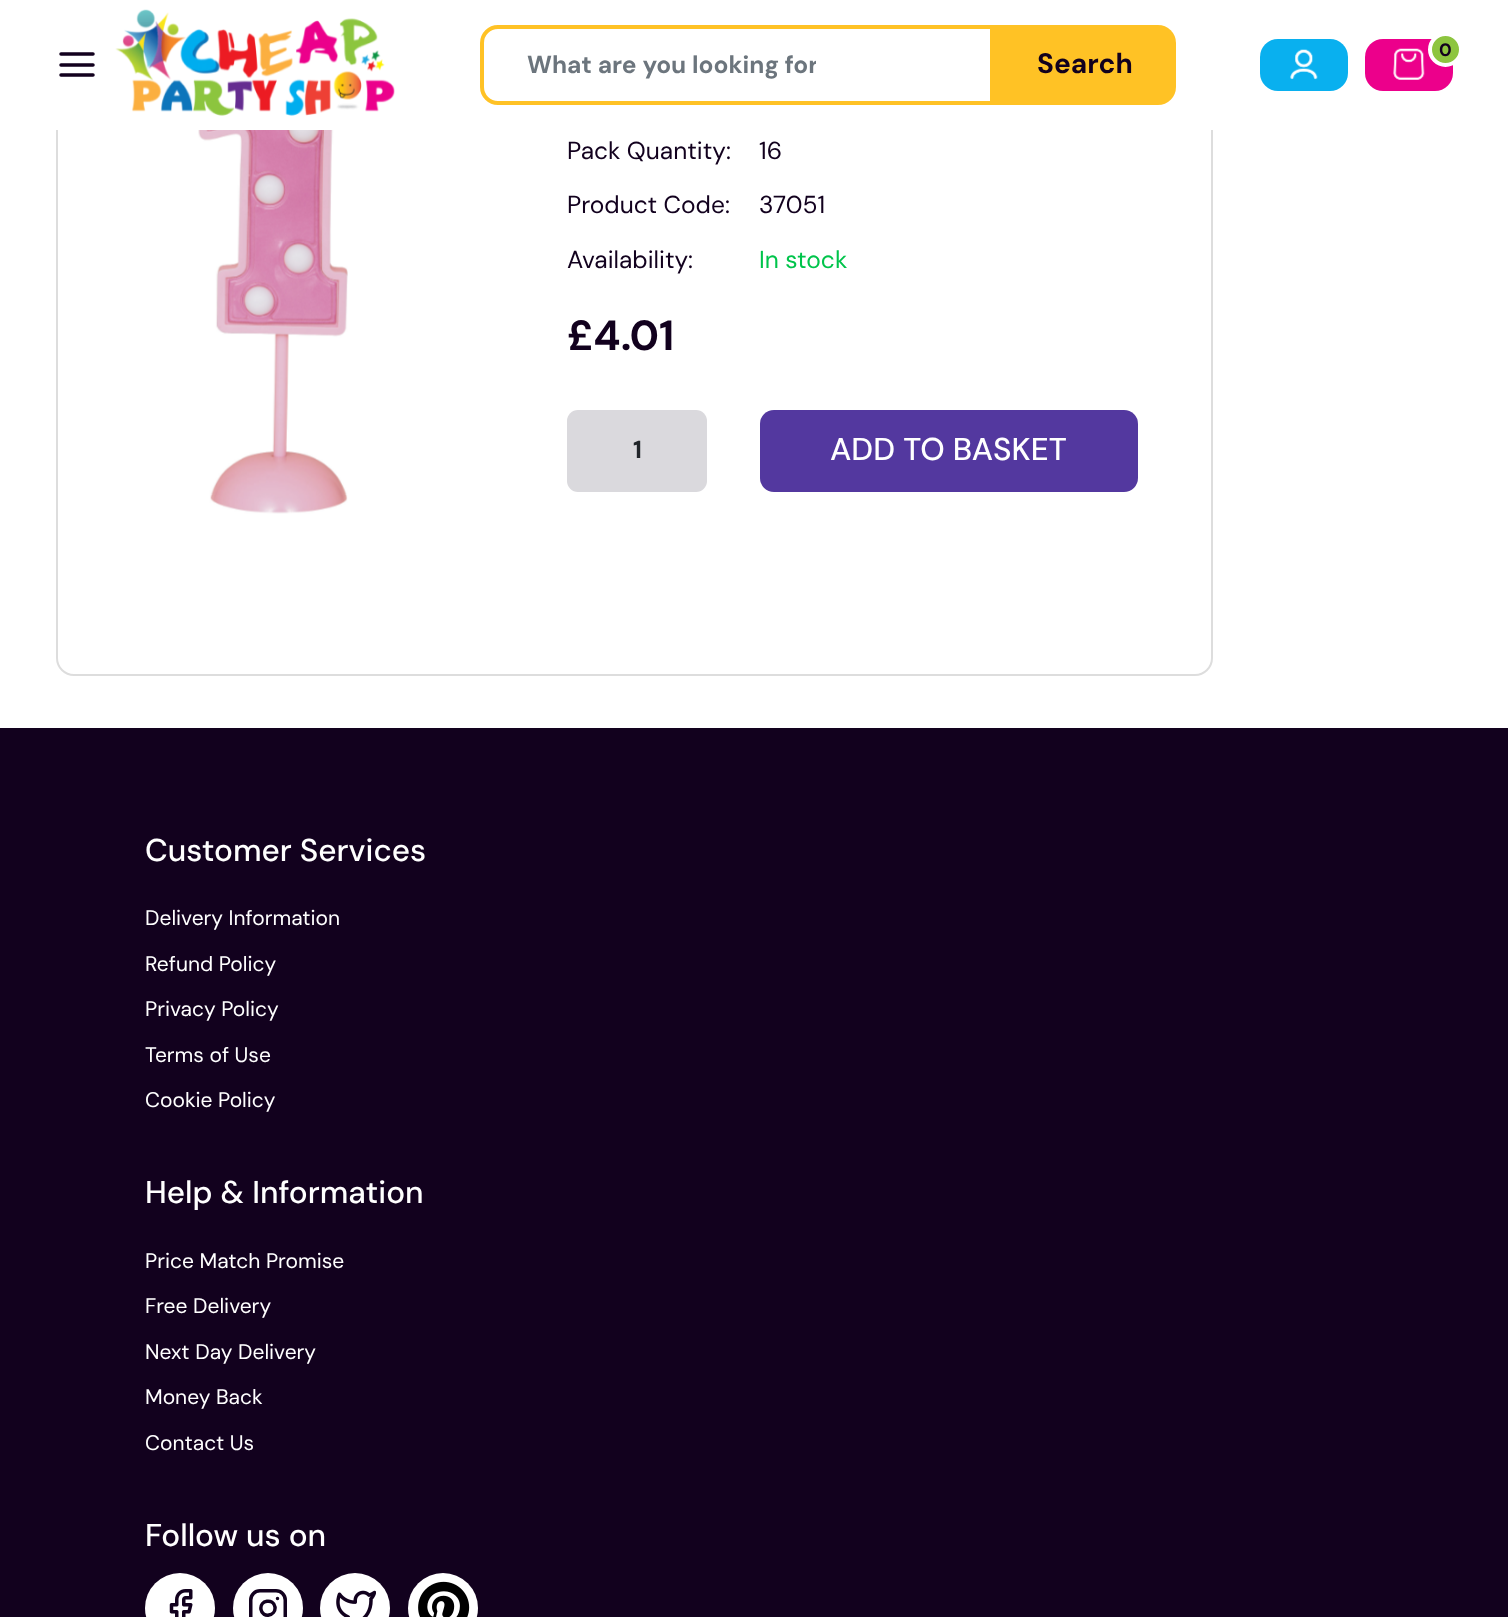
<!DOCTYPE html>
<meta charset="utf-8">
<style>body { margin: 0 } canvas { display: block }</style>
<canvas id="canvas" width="1508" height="1617"></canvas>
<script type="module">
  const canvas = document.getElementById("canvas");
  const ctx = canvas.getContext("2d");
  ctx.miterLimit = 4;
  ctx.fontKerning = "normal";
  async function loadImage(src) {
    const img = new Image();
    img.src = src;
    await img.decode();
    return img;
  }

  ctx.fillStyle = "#ffffff";
  ctx.fillRect(0, 0, 1508, 1617);
  ctx.beginPath();
  ctx.roundRect(57, -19, 1155, 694, 17);
  ctx.strokeStyle = "#dddddd";
  ctx.lineWidth = 2;
  ctx.stroke();
  ctx.fillRect(56, 0, 1157, 130);
  ctx.beginPath();
  ctx.moveTo(61, 65);
  ctx.lineTo(93, 65);
  ctx.moveTo(61, 54);
  ctx.lineTo(93, 54);
  ctx.moveTo(61, 75);
  ctx.lineTo(93, 75);
  ctx.strokeStyle = "#12011e";
  ctx.lineWidth = 3.5;
  ctx.lineCap = "round";
  ctx.lineJoin = "round";
  ctx.stroke();
  ctx.drawImage(await loadImage("img1.png"), 115, 9, 280, 107);
  ctx.fillStyle = "#09b0ef";
  ctx.beginPath();
  ctx.roundRect(1260, 39, 88, 52, 18);
  ctx.fill();
  ctx.drawImage(await loadImage("img2.png"), 1290, 49, 28, 31);
  ctx.fillStyle = "#ec008b";
  ctx.beginPath();
  ctx.roundRect(1365, 39, 88, 52, 18);
  ctx.fill();
  ctx.drawImage(await loadImage("img3.png"), 1393, 48, 32, 32);
  ctx.fillStyle = "#8dc53f";
  ctx.beginPath();
  ctx.arc(1445.5, 49.5, 15.5, 0, Math.PI * 2);
  ctx.fill();
  ctx.strokeStyle = "#ffffff";
  ctx.lineWidth = 4;
  ctx.stroke();
  ctx.font = "bold 18px DM Sans";
  ctx.fillStyle = "#12011e";
  ctx.fillText("0", 1439, 56);
  ctx.beginPath();
  ctx.roundRect(482, 27, 510, 76, [16, 0, 0, 16]);
  ctx.strokeStyle = "#ffc225";
  ctx.lineJoin = "miter";
  ctx.stroke();
  ctx.save();
  ctx.beginPath();
  ctx.rect(527, 49, 289, 32);
  ctx.clip();
  ctx.font = "bold 24.5px DM Sans";
  ctx.fillStyle = "#6c757d";
  ctx.fillText("What are you looking for", 527, 73);
  ctx.restore();
  ctx.fillStyle = "#ffc225";
  ctx.beginPath();
  ctx.roundRect(992, 25, 184, 80, [0, 18, 18, 0]);
  ctx.fill();
  ctx.font = "bold 28px DM Sans";
  ctx.fillStyle = "#12011e";
  ctx.fillText("Search", 1037, 73);
  ctx.drawImage(await loadImage("img4.png"), 198, 130, 150, 384);
  ctx.font = "24.5px DM Sans";
  ctx.fillText("Pack Quantity:", 567, 159);
  ctx.fillText("16", 759, 159);
  ctx.fillText("Product Code:", 567, 213);
  ctx.fillText("37051", 759, 213);
  ctx.fillText("Availability:", 567, 268);
  ctx.fillStyle = "#00c44b";
  ctx.fillText("In stock", 759, 268);
  ctx.font = "bold 42px DM Sans";
  ctx.fillStyle = "#12011e";
  ctx.fillText("£4.01", 567, 350);
  ctx.fillStyle = "#dad9dd";
  ctx.beginPath();
  ctx.roundRect(567, 410, 140, 82, 11);
  ctx.fill();
  ctx.font = "bold 24.5px DM Sans";
  ctx.fillStyle = "#212529";
  ctx.fillText("1", 633, 458);
  ctx.fillStyle = "#53389f";
  ctx.beginPath();
  ctx.roundRect(760, 410, 378, 82, 14);
  ctx.fill();
  ctx.font = "500 31.5px DM Sans";
  ctx.fillStyle = "#ffffff";
  ctx.fillText("ADD TO BASKET", 830, 460);
  ctx.fillStyle = "#12011e";
  ctx.fillRect(0, 728, 1508, 889);
  ctx.fillStyle = "#ffffff";
  ctx.fillText("Customer Services", 145, 861);
  ctx.font = "21px DM Sans";
  ctx.fillText("Delivery Information", 145, 925);
  ctx.fillText("Refund Policy", 145, 971);
  ctx.fillText("Privacy Policy", 145, 1016);
  ctx.fillText("Terms of Use", 145, 1062);
  ctx.fillText("Cookie Policy", 145, 1107);
  ctx.font = "500 31.5px DM Sans";
  ctx.fillText("Help & Information", 145, 1203);
  ctx.font = "21px DM Sans";
  ctx.fillText("Price Match Promise", 145, 1268);
  ctx.fillText("Free Delivery", 145, 1313);
  ctx.fillText("Next Day Delivery", 145, 1359);
  ctx.fillText("Money Back", 145, 1404);
  ctx.fillText("Contact Us", 145, 1450);
  ctx.font = "500 31.5px DM Sans";
  ctx.fillText("Follow us on", 145, 1546);
  ctx.beginPath();
  ctx.arc(180, 1608, 35, 0, Math.PI * 2);
  ctx.fill();
  ctx.drawImage(await loadImage("img5.png"), 169, 1589, 24, 28);
  ctx.beginPath();
  ctx.arc(268, 1608, 35, 0, Math.PI * 2);
  ctx.fill();
  ctx.beginPath();
  ctx.roundRect(250.75, 1590.75, 34.5, 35.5, 9.25);
  ctx.strokeStyle = "#12011e";
  ctx.lineWidth = 3.5;
  ctx.stroke();
  ctx.beginPath();
  ctx.moveTo(275, 1607);
  ctx.bezierCurveTo(276, 1616, 262.5, 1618.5, 261, 1609.5);
  ctx.bezierCurveTo(259.5, 1600, 273.5, 1598, 275, 1607);
  ctx.closePath();
  ctx.moveTo(277.5, 1598.5);
  ctx.lineTo(277.5, 1598.5);
  ctx.lineJoin = "round";
  ctx.stroke();
  ctx.beginPath();
  ctx.arc(355, 1608, 35, 0, Math.PI * 2);
  ctx.fill();
  ctx.drawImage(await loadImage("img6.png"), 336, 1590, 40, 27);
  ctx.beginPath();
  ctx.arc(443, 1608, 35, 0, Math.PI * 2);
  ctx.fill();
  ctx.drawImage(await loadImage("img7.png"), 418, 1581, 52, 36);
</script>
